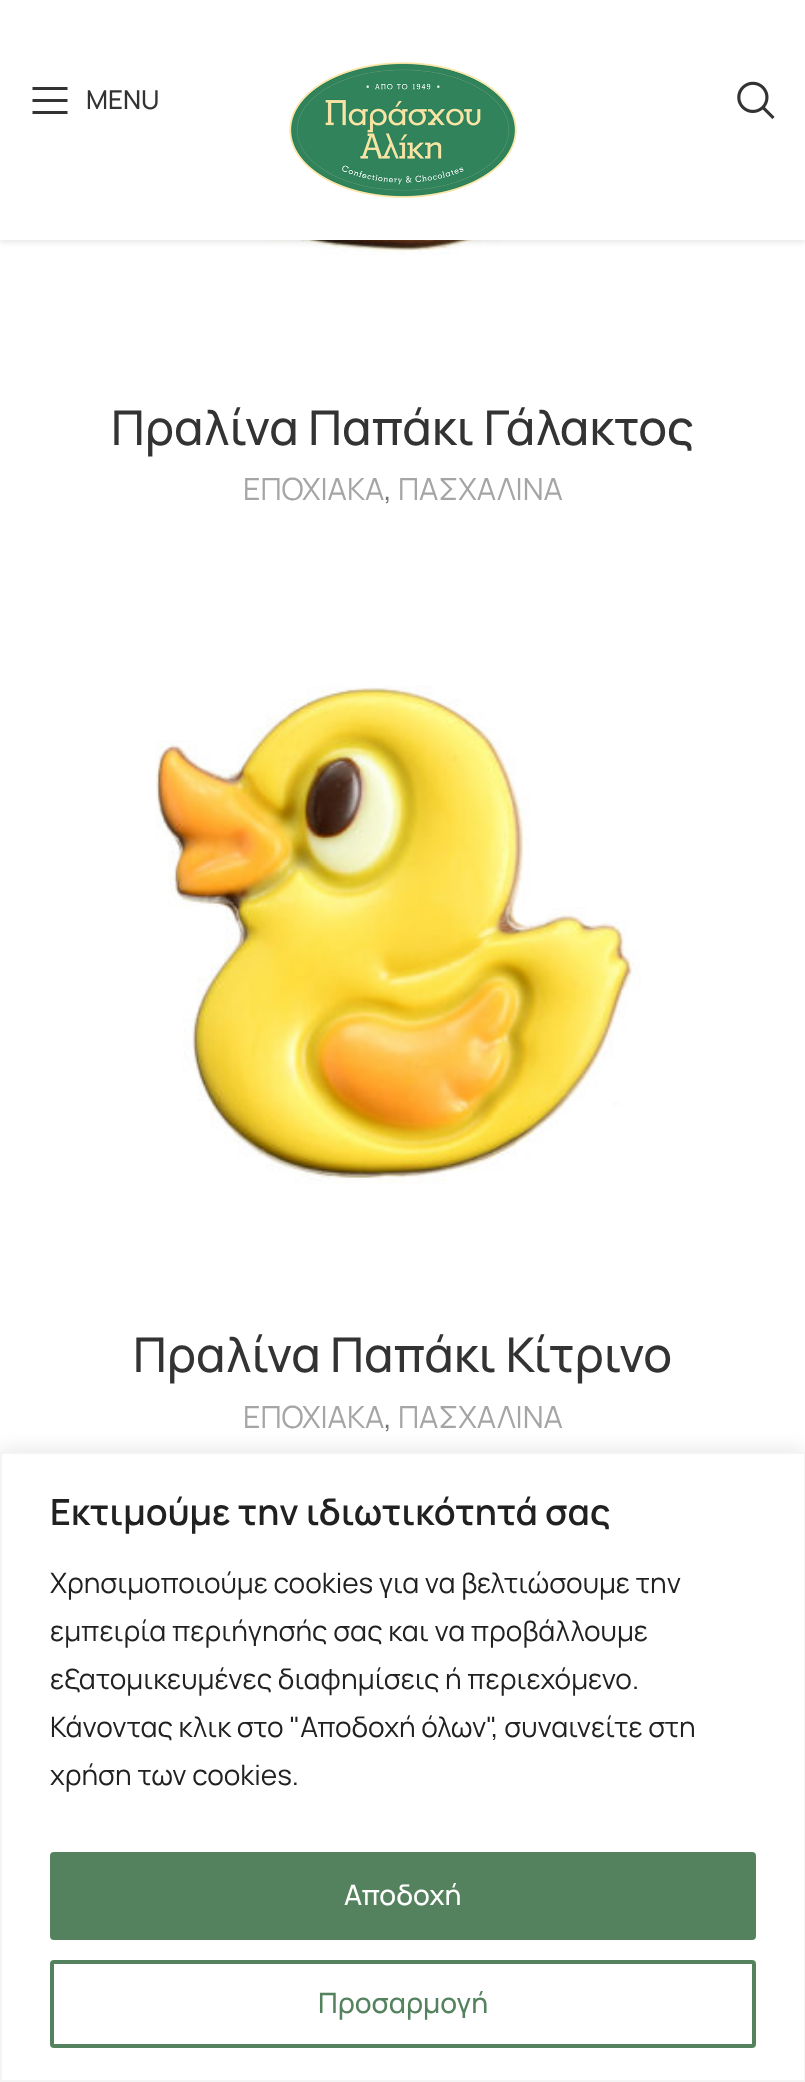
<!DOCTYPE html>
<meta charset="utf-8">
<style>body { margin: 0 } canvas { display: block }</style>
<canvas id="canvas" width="805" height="2082"></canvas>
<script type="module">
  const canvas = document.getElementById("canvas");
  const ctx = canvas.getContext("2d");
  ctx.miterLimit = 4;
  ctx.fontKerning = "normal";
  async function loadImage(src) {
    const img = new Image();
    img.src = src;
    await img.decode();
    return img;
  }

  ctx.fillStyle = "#ffffff";
  ctx.fillRect(0, 0, 805, 2082);
  ctx.drawImage(await loadImage("img3.png"), 183, 240, 457, 15);
  ctx.fillStyle = "rgba(0, 0, 0, 0.1)";
  ctx.filter = "blur(3px)";
  ctx.beginPath();
  ctx.rect(0, 2, 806, 240);
  ctx.fill();
  ctx.filter = "none";
  ctx.fillStyle = "#ffffff";
  ctx.fillRect(0, 0, 805, 240);
  ctx.fillStyle = "#333333";
  ctx.beginPath();
  ctx.moveTo(32.5, 90);
  ctx.lineTo(67.5, 90);
  ctx.lineTo(67.5, 87);
  ctx.lineTo(32.5, 87);
  ctx.closePath();
  ctx.moveTo(32.5, 102);
  ctx.lineTo(67.5, 102);
  ctx.lineTo(67.5, 99);
  ctx.lineTo(32.5, 99);
  ctx.closePath();
  ctx.moveTo(32.5, 114);
  ctx.lineTo(67.5, 114);
  ctx.lineTo(67.5, 111);
  ctx.lineTo(32.5, 111);
  ctx.closePath();
  ctx.fill();
  ctx.font = "500 26px Manrope";
  ctx.fillText("MENU", 86, 109);
  ctx.drawImage(await loadImage("img1.png"), 289, 62, 228, 136);
  ctx.drawImage(await loadImage("img2.png"), 737, 81, 38, 38);
  ctx.font = "500 48px Manrope";
  ctx.fillText("Πραλίνα Παπάκι Γάλακτος", 111, 445);
  ctx.font = "30.5px Manrope";
  ctx.fillStyle = "#a5a5a5";
  ctx.fillText("ΕΠΟΧΙΑΚΑ", 243, 500);
  ctx.fillStyle = "#767676";
  ctx.fillText(",", 384, 500);
  ctx.fillStyle = "#a5a5a5";
  ctx.fillText("ΠΑΣΧΑΛΙΝΑ", 398, 500);
  ctx.drawImage(await loadImage("img4.png"), 155, 685, 486, 499);
  ctx.font = "500 48px Manrope";
  ctx.fillStyle = "#333333";
  ctx.fillText("Πραλίνα Παπάκι Κίτρινο", 133, 1372);
  ctx.font = "30.5px Manrope";
  ctx.fillStyle = "#a5a5a5";
  ctx.fillText("ΕΠΟΧΙΑΚΑ", 243, 1428);
  ctx.fillStyle = "#767676";
  ctx.fillText(",", 384, 1428);
  ctx.fillStyle = "#a5a5a5";
  ctx.fillText("ΠΑΣΧΑΛΙΝΑ", 398, 1428);
  ctx.fillStyle = "rgba(172, 171, 171, 0.3)";
  ctx.filter = "blur(10px)";
  ctx.beginPath();
  ctx.rect(0, 1450, 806, 630);
  ctx.fill();
  ctx.filter = "none";
  ctx.fillStyle = "#ffffff";
  ctx.beginPath();
  ctx.rect(1, 1453, 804, 628);
  ctx.fill();
  ctx.strokeStyle = "#f4f4f4";
  ctx.lineWidth = 2;
  ctx.stroke();
  ctx.font = "600 36px Manrope";
  ctx.fillStyle = "#212121";
  ctx.fillText("Εκτιμούμε την ιδιωτικότητά σας", 50, 1525);
  ctx.font = "28px Manrope";
  ctx.fillText("Χρησιμοποιούμε cookies για να βελτιώσουμε την", 50, 1593);
  ctx.fillText("εμπειρία περιήγησής σας και να προβάλλουμε", 50, 1641);
  ctx.fillText("εξατομικευμένες διαφημίσεις ή περιεχόμενο.", 50, 1689);
  ctx.fillText("Κάνοντας κλικ στο \"Αποδοχή όλων\", συναινείτε στη", 50, 1737);
  ctx.fillText("χρήση των cookies.", 50, 1785);
  ctx.fillStyle = "#54825e";
  ctx.beginPath();
  ctx.roundRect(52, 1854, 702, 84, 2);
  ctx.fill();
  ctx.strokeStyle = "#54825e";
  ctx.lineWidth = 4;
  ctx.stroke();
  ctx.font = "500 28px Manrope";
  ctx.fillStyle = "#ffffff";
  ctx.fillText("Αποδοχή", 344, 1905);
  ctx.beginPath();
  ctx.roundRect(52, 1962, 702, 84, 2);
  ctx.stroke();
  ctx.fillStyle = "#54825e";
  ctx.fillText("Προσαρμογή", 318, 2013);
</script>
